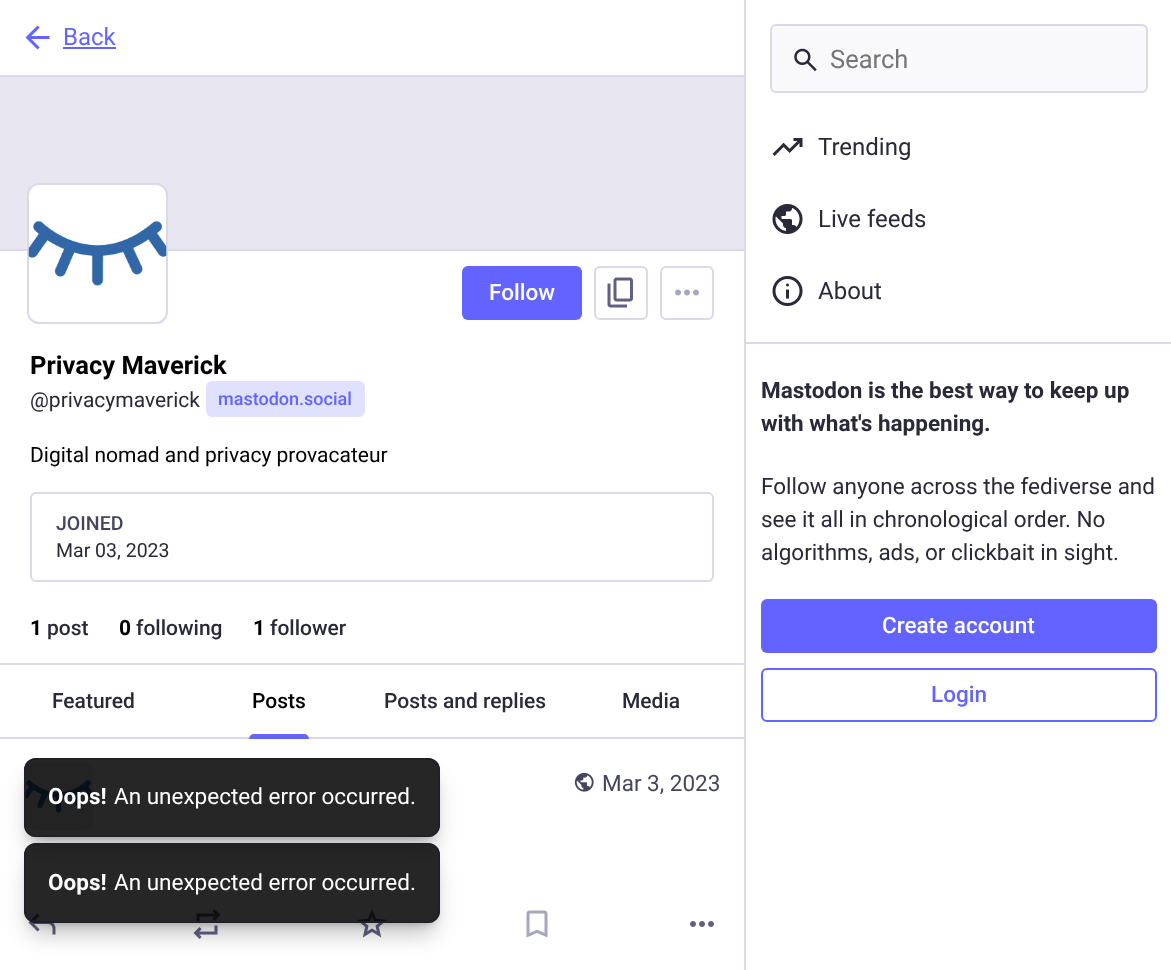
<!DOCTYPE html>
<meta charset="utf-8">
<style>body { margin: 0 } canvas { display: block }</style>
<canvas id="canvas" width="1171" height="970"></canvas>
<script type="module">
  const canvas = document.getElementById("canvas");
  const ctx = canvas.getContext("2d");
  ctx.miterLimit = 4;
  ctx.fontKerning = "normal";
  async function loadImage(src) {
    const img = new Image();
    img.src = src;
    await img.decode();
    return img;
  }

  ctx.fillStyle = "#ffffff";
  ctx.fillRect(0, 0, 1171, 970);
  ctx.fillStyle = "#d9d9e8";
  ctx.fillRect(0, 75, 744, 2);
  ctx.drawImage(await loadImage("img1.png"), 25, 25, 25, 25);
  ctx.font = "24px Roboto";
  ctx.fillStyle = "#6364ff";
  ctx.fillText("Back", 63, 45);
  ctx.fillRect(63, 47, 53, 2);
  ctx.fillStyle = "#e8e6f0";
  ctx.fillRect(0, 77, 744, 172);
  ctx.fillStyle = "#d9d9e8";
  ctx.fillRect(0, 249, 744, 2);
  ctx.fillRect(0, 663, 744, 2);
  ctx.fillStyle = "#ffffff";
  ctx.beginPath();
  ctx.roundRect(28, 184, 139, 139, 11);
  ctx.fill();
  ctx.strokeStyle = "#d9d9e8";
  ctx.lineWidth = 2;
  ctx.stroke();
  ctx.drawImage(await loadImage("img2.png"), 28, 221, 139, 65);
  ctx.fillStyle = "#6364ff";
  ctx.beginPath();
  ctx.roundRect(462, 266, 120, 54, 6);
  ctx.fill();
  ctx.font = "500 22.5px Roboto";
  ctx.fillStyle = "#ffffff";
  ctx.fillText("Follow", 489, 300);
  ctx.beginPath();
  ctx.roundRect(595, 267, 52, 52, 5);
  ctx.stroke();
  ctx.drawImage(await loadImage("img3.png"), 607, 277, 26, 31);
  ctx.beginPath();
  ctx.roundRect(661, 267, 52, 52, 5);
  ctx.stroke();
  ctx.drawImage(await loadImage("img4.png"), 675, 289, 24, 7);
  ctx.font = "bold 25.5px Roboto";
  ctx.fillStyle = "#000000";
  ctx.fillText("Privacy Maverick", 30, 374);
  ctx.font = "21px Roboto";
  ctx.fillStyle = "#292938";
  ctx.fillText("@privacymaverick", 30, 407);
  ctx.fillStyle = "#e0e0ff";
  ctx.beginPath();
  ctx.roundRect(206, 381, 159, 36, 6);
  ctx.fill();
  ctx.font = "500 18px Roboto";
  ctx.fillStyle = "#6364ff";
  ctx.fillText("mastodon.social", 218, 405);
  ctx.font = "21px Roboto";
  ctx.fillStyle = "#000000";
  ctx.fillText("Digital nomad and privacy provacateur", 30, 462);
  ctx.beginPath();
  ctx.roundRect(31, 493, 682, 88, 5);
  ctx.stroke();
  ctx.font = "500 19.5px Roboto";
  ctx.fillStyle = "#45455f";
  ctx.fillText("JOINED", 56, 530);
  ctx.font = "19.5px Roboto";
  ctx.fillStyle = "#292938";
  ctx.fillText("Mar 03, 2023", 56, 557);
  ctx.font = "bold 21px Roboto";
  ctx.fillStyle = "#000000";
  ctx.fillText("1", 30, 635);
  ctx.font = "500 21px Roboto";
  ctx.fillStyle = "#292938";
  ctx.fillText("post", 47, 635);
  ctx.font = "bold 21px Roboto";
  ctx.fillStyle = "#000000";
  ctx.fillText("0", 119, 635);
  ctx.font = "500 21px Roboto";
  ctx.fillStyle = "#292938";
  ctx.fillText("following", 136, 635);
  ctx.font = "bold 21px Roboto";
  ctx.fillStyle = "#000000";
  ctx.fillText("1", 253, 635);
  ctx.font = "500 21px Roboto";
  ctx.fillStyle = "#292938";
  ctx.fillText("follower", 270, 635);
  ctx.fillStyle = "#d9d9e8";
  ctx.fillRect(0, 737, 744, 2);
  ctx.fillStyle = "#292938";
  ctx.fillText("Featured", 52, 708);
  ctx.fillStyle = "#000000";
  ctx.fillText("Posts", 252, 708);
  ctx.fillStyle = "#6364ff";
  ctx.beginPath();
  ctx.roundRect(249, 734, 60, 5, [5, 5, 0, 0]);
  ctx.fill();
  ctx.fillStyle = "#292938";
  ctx.fillText("Posts and replies", 384, 708);
  ctx.fillText("Media", 622, 708);
  ctx.fillStyle = "#e8e6f0";
  ctx.beginPath();
  ctx.roundRect(24, 762, 69, 69, 12);
  ctx.fill();
  ctx.drawImage(await loadImage("img5.png"), 24, 780, 69, 33);
  ctx.drawImage(await loadImage("img6.png"), 574, 772, 20, 20);
  ctx.font = "22.5px Roboto";
  ctx.fillStyle = "#45455f";
  ctx.fillText("Mar 3, 2023", 602, 791);
  ctx.drawImage(await loadImage("img7.png"), 28, 913, 28, 22);
  ctx.drawImage(await loadImage("img8.png"), 193, 909, 28, 30);
  ctx.drawImage(await loadImage("img9.png"), 357, 909, 30, 29);
  ctx.drawImage(await loadImage("img10.png"), 526, 910, 22, 28);
  ctx.drawImage(await loadImage("img11.png"), 690, 921, 24, 6);
  ctx.fillStyle = "#d9d9e8";
  ctx.fillRect(744, 0, 2, 970);
  ctx.fillStyle = "#f9f9fb";
  ctx.beginPath();
  ctx.roundRect(771, 25, 376, 67, 5);
  ctx.fill();
  ctx.stroke();
  ctx.drawImage(await loadImage("img12.png"), 794, 48, 23, 24);
  ctx.font = "25.5px Roboto";
  ctx.fillStyle = "#757575";
  ctx.fillText("Search", 830, 68);
  ctx.drawImage(await loadImage("img13.png"), 772, 138, 31, 18);
  ctx.font = "24px Roboto";
  ctx.fillStyle = "#292938";
  ctx.fillText("Trending", 818, 155);
  ctx.drawImage(await loadImage("img14.png"), 772, 204, 31, 30);
  ctx.fillText("Live feeds", 818, 227);
  ctx.drawImage(await loadImage("img15.png"), 772, 276, 31, 30);
  ctx.fillText("About", 818, 299);
  ctx.fillStyle = "#d9d9e8";
  ctx.fillRect(746, 342, 425, 2);
  ctx.font = "bold 22.5px Roboto";
  ctx.fillStyle = "#292938";
  ctx.fillText("Mastodon is the best way to keep up", 761, 398);
  ctx.fillText("with what's happening.", 761, 431);
  ctx.font = "22.5px Roboto";
  ctx.fillText("Follow anyone across the fediverse and", 761, 494);
  ctx.fillText("see it all in chronological order. No", 761, 527);
  ctx.fillText("algorithms, ads, or clickbait in sight.", 761, 560);
  ctx.fillStyle = "#6364ff";
  ctx.beginPath();
  ctx.roundRect(761, 599, 396, 54, 6);
  ctx.fill();
  ctx.font = "500 22.5px Roboto";
  ctx.fillStyle = "#ffffff";
  ctx.fillText("Create account", 882, 633);
  ctx.beginPath();
  ctx.roundRect(762, 669, 394, 52, 5);
  ctx.strokeStyle = "#6364ff";
  ctx.stroke();
  ctx.fillStyle = "#6364ff";
  ctx.fillText("Login", 931, 702);
  ctx.save();
  ctx.beginPath();
  ctx.moveTo(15, 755);
  ctx.lineTo(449, 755);
  ctx.lineTo(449, 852);
  ctx.lineTo(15, 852);
  ctx.closePath();
  ctx.moveTo(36, 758);
  ctx.lineTo(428, 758);
  ctx.bezierCurveTo(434.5, 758, 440, 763.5, 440, 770);
  ctx.lineTo(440, 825);
  ctx.bezierCurveTo(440, 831.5, 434.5, 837, 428, 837);
  ctx.lineTo(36, 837);
  ctx.bezierCurveTo(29.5, 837, 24, 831.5, 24, 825);
  ctx.lineTo(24, 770);
  ctx.bezierCurveTo(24, 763.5, 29.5, 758, 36, 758);
  ctx.closePath();
  ctx.clip("evenodd");
  ctx.fillStyle = "rgba(0, 0, 0, 0.25)";
  ctx.filter = "blur(4.5px)";
  ctx.beginPath();
  ctx.roundRect(30, 770, 404, 67, 6);
  ctx.fill();
  ctx.filter = "none";
  ctx.restore();
  ctx.save();
  ctx.beginPath();
  ctx.moveTo(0, 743);
  ctx.lineTo(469, 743);
  ctx.lineTo(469, 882);
  ctx.lineTo(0, 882);
  ctx.closePath();
  ctx.moveTo(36, 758);
  ctx.lineTo(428, 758);
  ctx.bezierCurveTo(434.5, 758, 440, 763.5, 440, 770);
  ctx.lineTo(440, 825);
  ctx.bezierCurveTo(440, 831.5, 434.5, 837, 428, 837);
  ctx.lineTo(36, 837);
  ctx.bezierCurveTo(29.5, 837, 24, 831.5, 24, 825);
  ctx.lineTo(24, 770);
  ctx.bezierCurveTo(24, 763.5, 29.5, 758, 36, 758);
  ctx.closePath();
  ctx.clip("evenodd");
  ctx.fillStyle = "rgba(0, 0, 0, 0.25)";
  ctx.filter = "blur(11px)";
  ctx.beginPath();
  ctx.roundRect(29, 777, 406, 71, 8);
  ctx.fill();
  ctx.filter = "none";
  ctx.restore();
  ctx.fillStyle = "rgba(0, 0, 0, 0.85)";
  ctx.beginPath();
  ctx.roundRect(24, 758, 416, 79, 12);
  ctx.fill();
  ctx.beginPath();
  ctx.roundRect(25, 759, 414, 77, 11);
  ctx.strokeStyle = "rgba(32, 32, 44, 0.85)";
  ctx.stroke();
  ctx.font = "bold 22.5px Roboto";
  ctx.fillStyle = "#ffffff";
  ctx.fillText("Oops!", 48, 804);
  ctx.font = "22.5px Roboto";
  ctx.fillText("An unexpected error occurred.", 114, 804);
  ctx.save();
  ctx.beginPath();
  ctx.moveTo(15, 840);
  ctx.lineTo(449, 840);
  ctx.lineTo(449, 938);
  ctx.lineTo(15, 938);
  ctx.closePath();
  ctx.moveTo(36, 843);
  ctx.lineTo(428, 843);
  ctx.bezierCurveTo(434.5, 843, 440, 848.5, 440, 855);
  ctx.lineTo(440, 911);
  ctx.bezierCurveTo(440, 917.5, 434.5, 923, 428, 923);
  ctx.lineTo(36, 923);
  ctx.bezierCurveTo(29.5, 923, 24, 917.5, 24, 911);
  ctx.lineTo(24, 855);
  ctx.bezierCurveTo(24, 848.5, 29.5, 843, 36, 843);
  ctx.closePath();
  ctx.clip("evenodd");
  ctx.fillStyle = "rgba(0, 0, 0, 0.25)";
  ctx.filter = "blur(4.5px)";
  ctx.beginPath();
  ctx.roundRect(30, 855, 404, 68, 6);
  ctx.fill();
  ctx.filter = "none";
  ctx.restore();
  ctx.save();
  ctx.beginPath();
  ctx.moveTo(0, 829);
  ctx.lineTo(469, 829);
  ctx.lineTo(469, 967);
  ctx.lineTo(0, 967);
  ctx.closePath();
  ctx.moveTo(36, 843);
  ctx.lineTo(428, 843);
  ctx.bezierCurveTo(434.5, 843, 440, 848.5, 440, 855);
  ctx.lineTo(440, 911);
  ctx.bezierCurveTo(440, 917.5, 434.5, 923, 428, 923);
  ctx.lineTo(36, 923);
  ctx.bezierCurveTo(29.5, 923, 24, 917.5, 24, 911);
  ctx.lineTo(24, 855);
  ctx.bezierCurveTo(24, 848.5, 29.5, 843, 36, 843);
  ctx.closePath();
  ctx.clip("evenodd");
  ctx.fillStyle = "rgba(0, 0, 0, 0.25)";
  ctx.filter = "blur(11px)";
  ctx.beginPath();
  ctx.roundRect(29, 863, 406, 70, 8);
  ctx.fill();
  ctx.filter = "none";
  ctx.restore();
  ctx.fillStyle = "rgba(0, 0, 0, 0.85)";
  ctx.beginPath();
  ctx.roundRect(24, 843, 416, 80, 12);
  ctx.fill();
  ctx.beginPath();
  ctx.roundRect(25, 844, 414, 78, 11);
  ctx.stroke();
  ctx.font = "bold 22.5px Roboto";
  ctx.fillStyle = "#ffffff";
  ctx.fillText("Oops!", 48, 890);
  ctx.font = "22.5px Roboto";
  ctx.fillText("An unexpected error occurred.", 114, 890);
</script>
